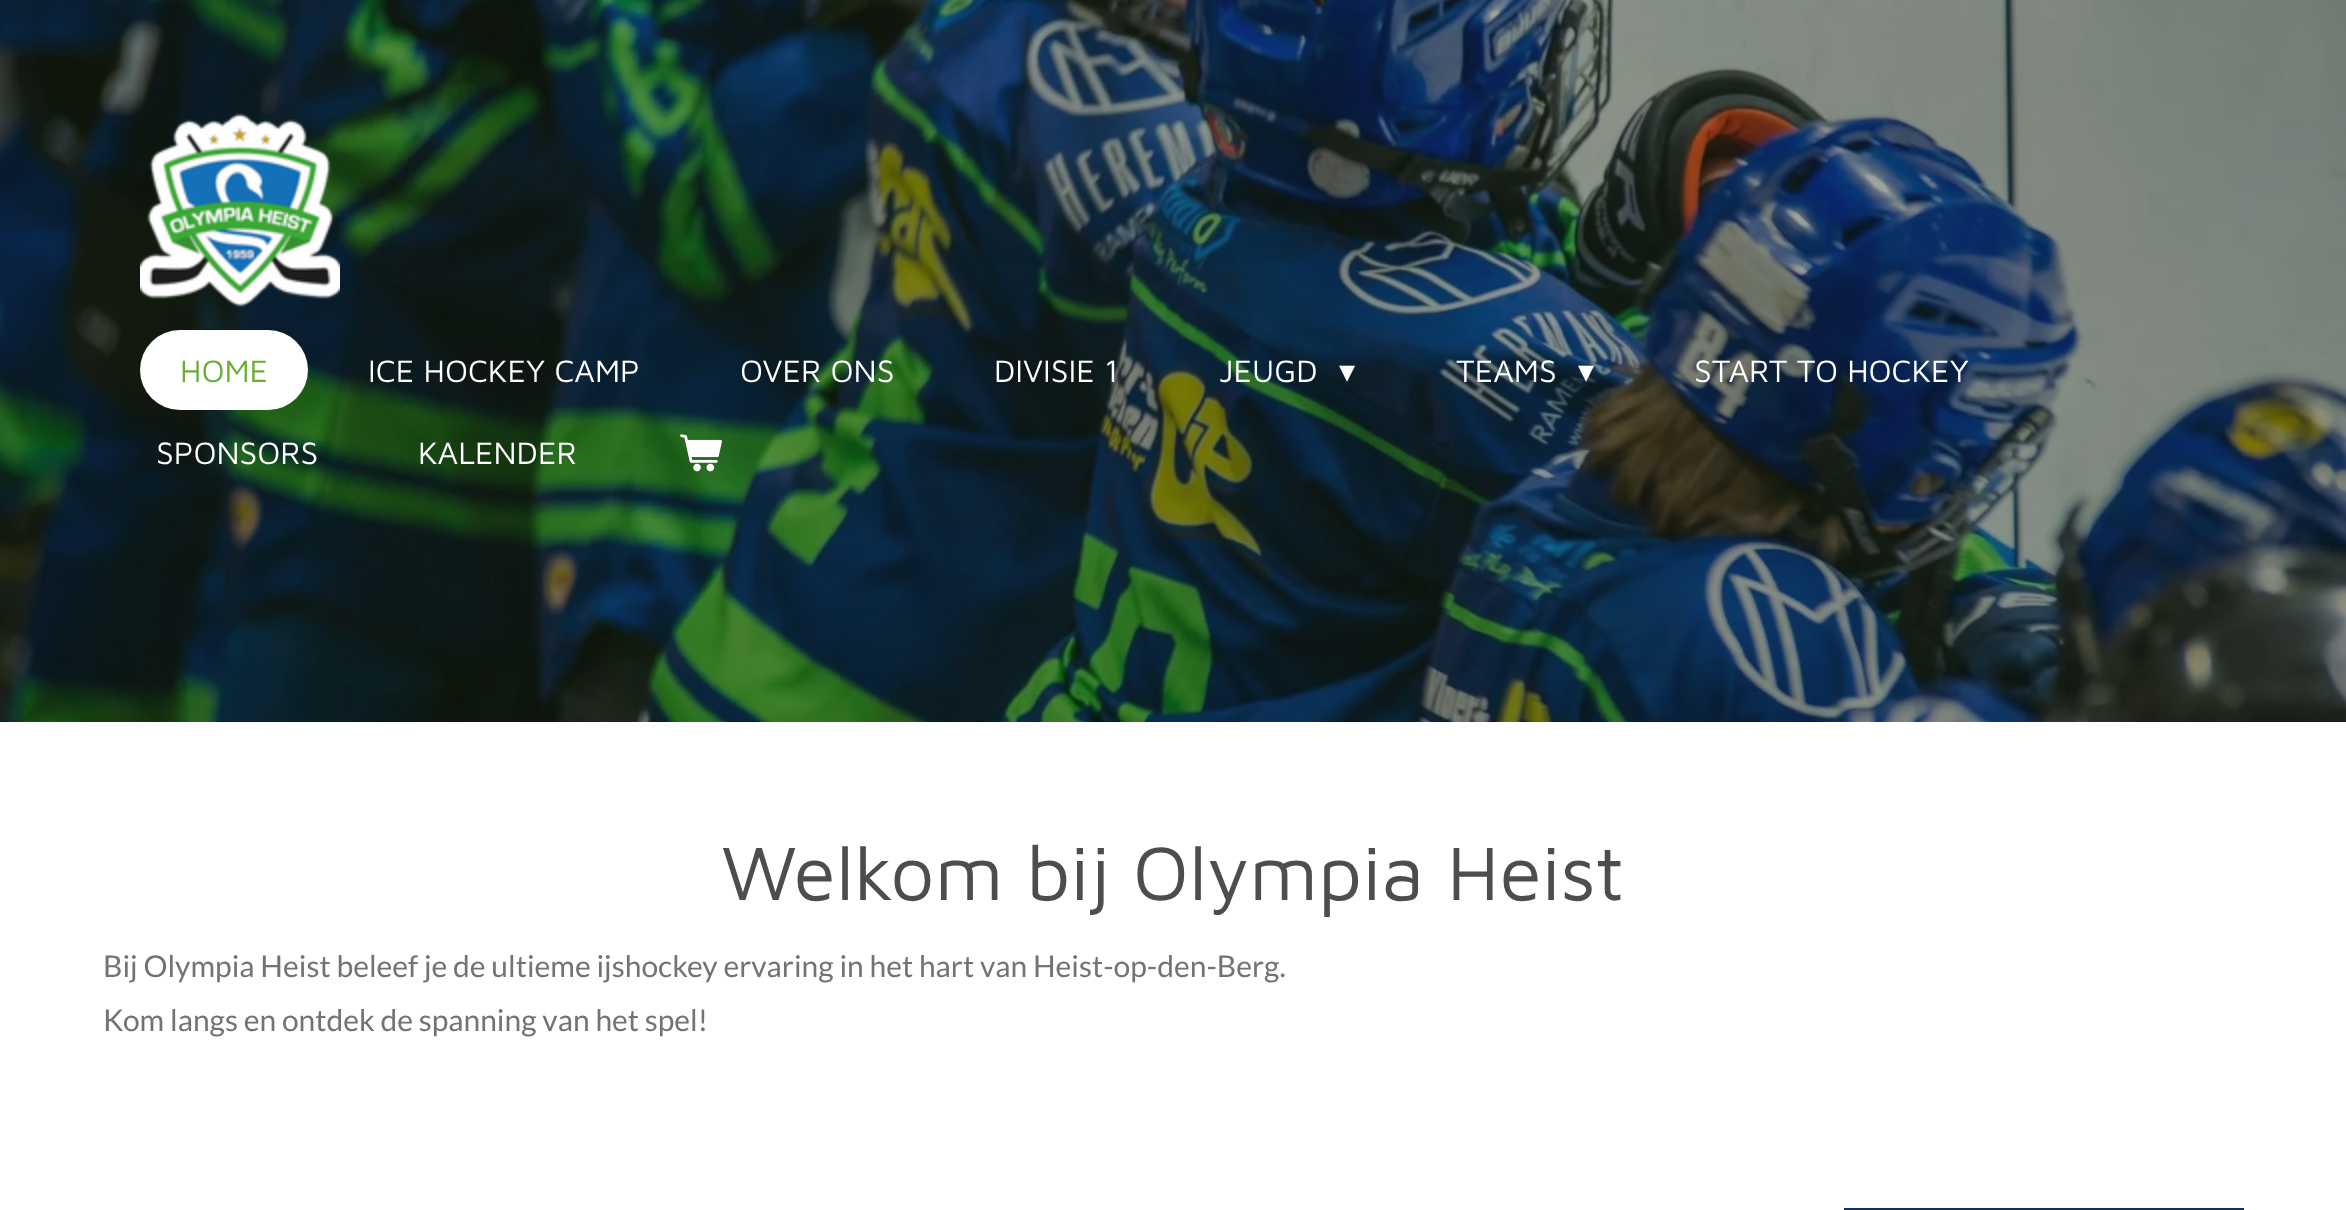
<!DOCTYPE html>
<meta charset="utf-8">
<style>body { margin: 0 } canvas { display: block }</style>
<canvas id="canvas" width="2346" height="1210"></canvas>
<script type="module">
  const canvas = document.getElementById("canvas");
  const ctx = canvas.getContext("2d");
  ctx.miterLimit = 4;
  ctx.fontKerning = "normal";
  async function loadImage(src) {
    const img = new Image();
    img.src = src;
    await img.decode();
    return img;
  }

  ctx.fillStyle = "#ffffff";
  ctx.fillRect(0, 0, 2346, 1210);
  ctx.drawImage(await loadImage("img1.png"), 0, 0, 2346, 722);
  ctx.drawImage(await loadImage("img2.png"), 140, 113, 200, 194);
  ctx.beginPath();
  ctx.roundRect(140, 330, 168, 80, 40);
  ctx.fill();
  ctx.font = "32px Maven Pro";
  ctx.fillStyle = "#68ae34";
  ctx.fillText("HOME", 180, 382);
  ctx.fillStyle = "#ffffff";
  ctx.fillText("ICE HOCKEY CAMP", 368, 382);
  ctx.fillText("OVER ONS", 740, 382);
  ctx.fillText("DIVISIE 1", 994, 382);
  ctx.fillText("JEUGD", 1219, 382);
  ctx.font = "32px DejaVu Sans";
  ctx.fillText("▾", 1339, 382);
  ctx.font = "32px Maven Pro";
  ctx.fillText("TEAMS", 1456, 382);
  ctx.font = "32px DejaVu Sans";
  ctx.fillText("▾", 1578, 382);
  ctx.font = "32px Maven Pro";
  ctx.fillText("START TO HOCKEY", 1694, 382);
  ctx.fillText("SPONSORS", 156, 464);
  ctx.fillText("KALENDER", 418, 464);
  ctx.drawImage(await loadImage("img3.png"), 680, 434, 42, 38);
  ctx.font = "78px Maven Pro";
  ctx.fillStyle = "#4d4d4d";
  ctx.fillText("Welkom bij Olympia Heist", 721, 900);
  ctx.font = "30px Lato";
  ctx.fillStyle = "#737373";
  ctx.fillText("Bij Olympia Heist beleef je de ultieme ijshockey ervaring in het hart van Heist-op-den-Berg.", 103, 977);
  ctx.fillText("Kom langs en ontdek de spanning van het spel!", 103, 1031);
  ctx.fillStyle = "#0e325b";
  ctx.fillRect(1844, 1208, 400, 2);
</script>
